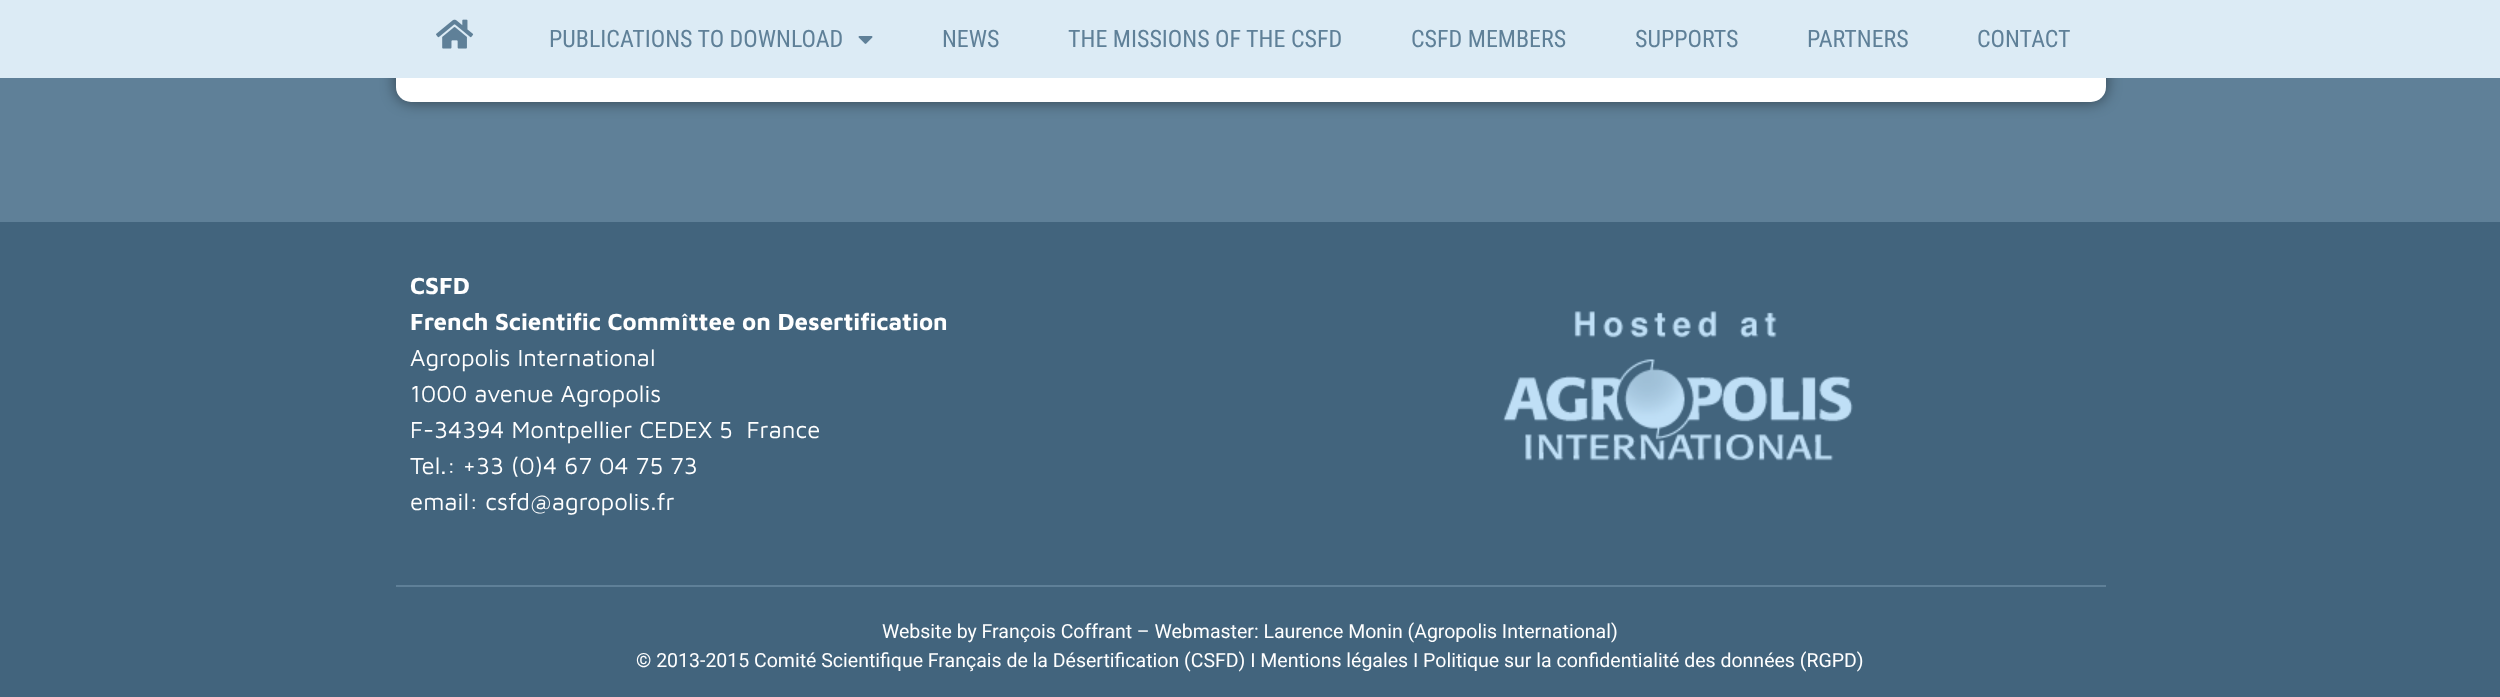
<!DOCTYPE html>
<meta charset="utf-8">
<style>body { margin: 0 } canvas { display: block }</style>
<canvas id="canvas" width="2500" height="697"></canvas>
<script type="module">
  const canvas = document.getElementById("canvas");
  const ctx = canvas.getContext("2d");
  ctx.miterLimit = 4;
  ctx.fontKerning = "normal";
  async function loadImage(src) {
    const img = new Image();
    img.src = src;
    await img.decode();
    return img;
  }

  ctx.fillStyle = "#5f8098";
  ctx.fillRect(0, 0, 2500, 697);
  ctx.fillStyle = "rgba(0, 0, 0, 0.5)";
  ctx.filter = "blur(7.5px)";
  ctx.beginPath();
  ctx.roundRect(396, -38, 1710, 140, 15);
  ctx.fill();
  ctx.filter = "none";
  ctx.fillStyle = "#ffffff";
  ctx.beginPath();
  ctx.roundRect(396, -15, 1710, 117, 15);
  ctx.fill();
  ctx.fillStyle = "#dcebf5";
  ctx.fillRect(0, 0, 2500, 78);
  ctx.drawImage(await loadImage("img1.png"), 436, 19, 38, 30);
  ctx.font = "24px Roboto Condensed";
  ctx.fillStyle = "#5f8098";
  ctx.fillText("PUBLICATIONS TO DOWNLOAD", 549, 47);
  ctx.drawImage(await loadImage("img2.png"), 858, 36, 15, 8);
  ctx.fillText("NEWS", 942, 47);
  ctx.fillText("THE MISSIONS OF THE CSFD", 1068, 47);
  ctx.fillText("CSFD MEMBERS", 1411, 47);
  ctx.fillText("SUPPORTS", 1635, 47);
  ctx.fillText("PARTNERS", 1807, 47);
  ctx.fillText("CONTACT", 1977, 47);
  ctx.fillStyle = "#42647d";
  ctx.fillRect(0, 222, 2500, 475);
  ctx.font = "bold 24px Maven Pro";
  ctx.fillStyle = "#ffffff";
  ctx.fillText("CSFD", 410, 294);
  ctx.fillText("French Scientific Commîttee on Desertification", 410, 330);
  ctx.font = "24px Maven Pro";
  ctx.fillText("Agropolis International", 410, 366);
  ctx.fillText("1000 avenue Agropolis", 410, 402);
  ctx.fillText("F-34394 Montpellier CEDEX 5  France", 410, 438);
  ctx.fillText("Tel.: +33 (0)4 67 04 75 73", 410, 474);
  ctx.fillText("email: csfd@agropolis.fr", 410, 510);
  ctx.drawImage(await loadImage("img3.png"), 1503, 311, 350, 150);
  ctx.fillStyle = "#5f8098";
  ctx.fillRect(396, 585, 1710, 2);
  ctx.font = "19.5px Roboto";
  ctx.fillStyle = "#ffffff";
  ctx.fillText("Website by François Coffrant – Webmaster: Laurence Monin (Agropolis International)", 882, 638);
  ctx.fillText("© 2013-2015 Comité Scientifique Français de la Désertification (CSFD) I Mentions légales I Politique sur la confidentialité des données (RGPD)", 636, 667);
</script>
